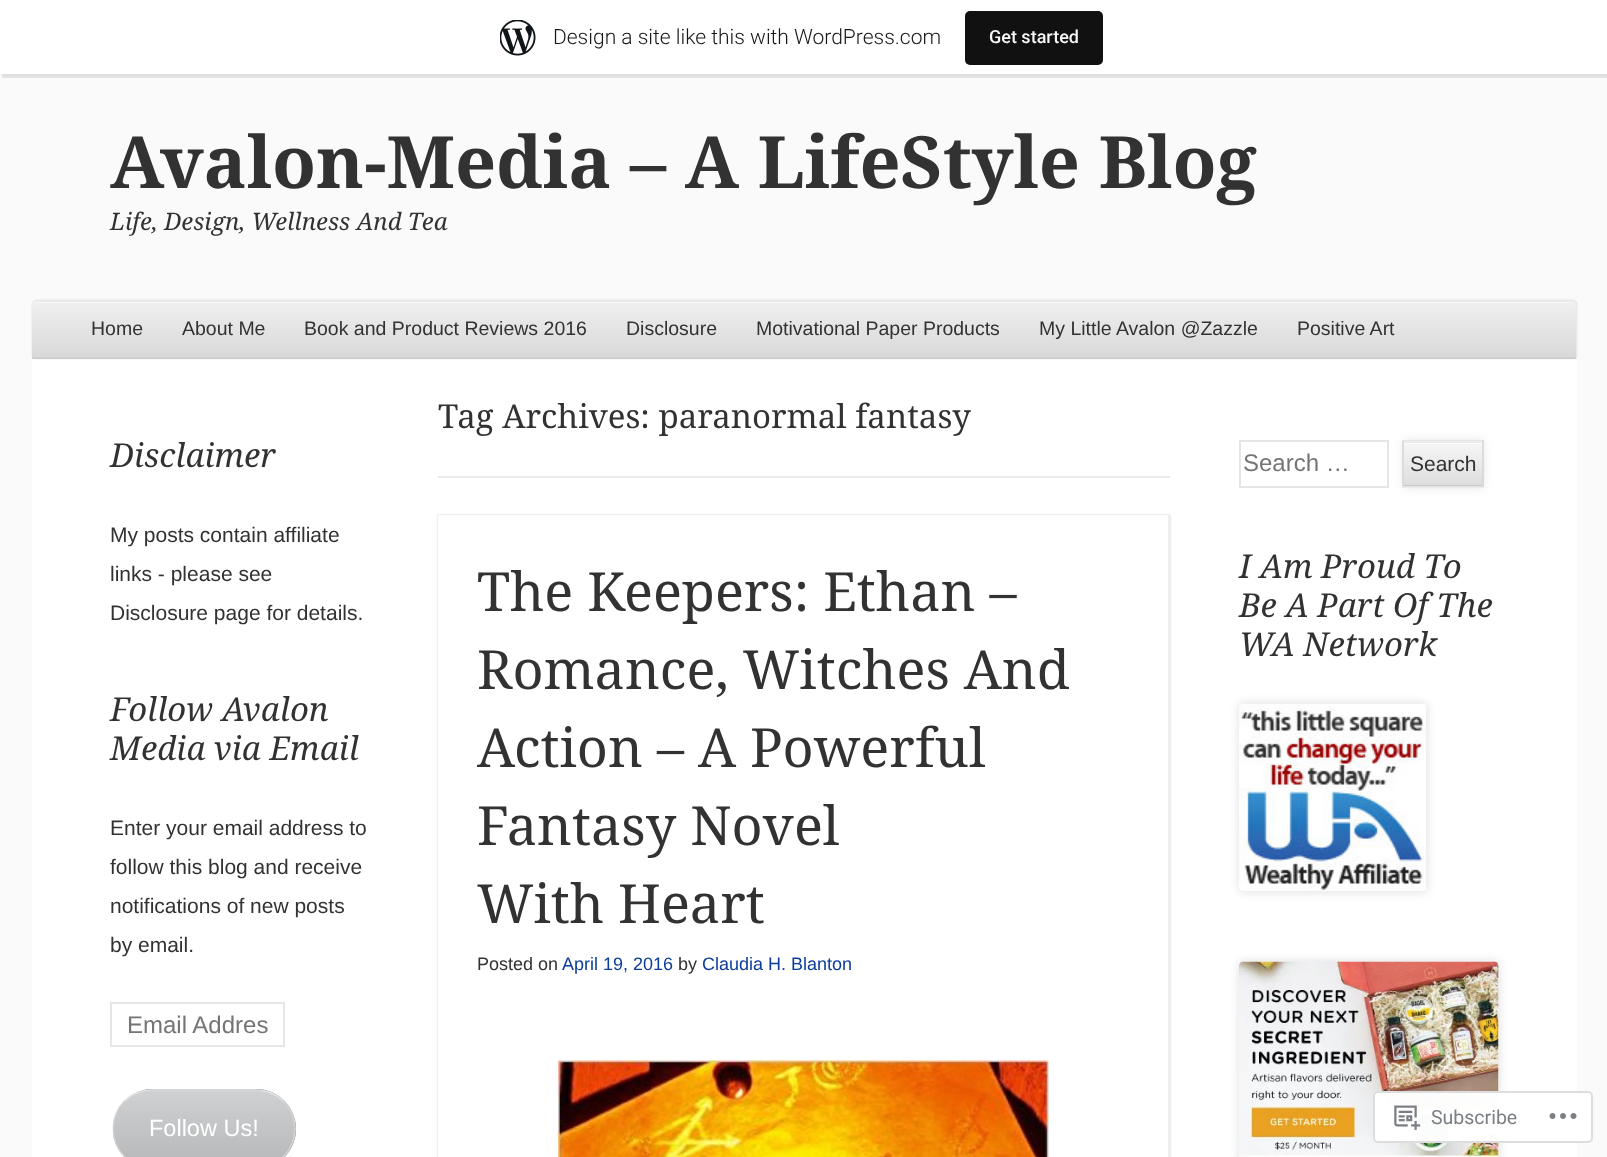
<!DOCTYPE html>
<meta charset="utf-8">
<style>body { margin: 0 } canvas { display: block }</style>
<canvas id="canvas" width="1607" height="1157"></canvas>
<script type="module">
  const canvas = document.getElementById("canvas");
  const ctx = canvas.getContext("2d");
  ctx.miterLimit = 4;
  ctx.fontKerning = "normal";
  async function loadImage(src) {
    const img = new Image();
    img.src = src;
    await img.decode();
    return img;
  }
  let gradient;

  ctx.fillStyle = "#fafafa";
  ctx.fillRect(0, 0, 1607, 1157);
  ctx.fillStyle = "rgba(0, 0, 0, 0.05)";
  ctx.filter = "blur(1.5px)";
  ctx.beginPath();
  ctx.rect(0, 2, 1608, 73);
  ctx.fill();
  ctx.filter = "none";
  ctx.fillStyle = "rgba(0, 0, 0, 0.08)";
  ctx.beginPath();
  ctx.moveTo(2, 74);
  ctx.lineTo(2, 78);
  ctx.lineTo(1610, 78);
  ctx.lineTo(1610, 5);
  ctx.lineTo(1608, 5);
  ctx.lineTo(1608, 74);
  ctx.closePath();
  ctx.fill();
  ctx.fillStyle = "#ffffff";
  ctx.fillRect(0, 0, 1607, 74);
  ctx.drawImage(await loadImage("img1.png"), 500, 20, 36, 36);
  ctx.font = "300 21px Roboto";
  ctx.fillStyle = "#171717";
  ctx.fillText("Design a site like this with WordPress.com", 553, 44);
  ctx.fillStyle = "#111111";
  ctx.beginPath();
  ctx.roundRect(965, 11, 138, 54, 5);
  ctx.fill();
  ctx.font = "500 18px Roboto";
  ctx.fillStyle = "#f6f7f7";
  ctx.fillText("Get started", 989, 43);
  ctx.font = "bold 72px Droid Serif";
  ctx.fillStyle = "#323232";
  ctx.fillText("Avalon-Media – A LifeStyle Blog", 110, 188);
  ctx.font = "italic 24px Droid Serif";
  ctx.fillText("Life, Design, Wellness And Tea", 110, 230);
  ctx.fillStyle = "#ffffff";
  ctx.beginPath();
  ctx.moveTo(37, 300);
  ctx.lineTo(1572, 300);
  ctx.bezierCurveTo(1575, 300, 1577, 302, 1577, 305);
  ctx.lineTo(1577, 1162);
  ctx.lineTo(32, 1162);
  ctx.lineTo(32, 305);
  ctx.bezierCurveTo(32, 302, 34, 300, 37, 300);
  ctx.closePath();
  ctx.fill();
  ctx.fillStyle = "rgba(0, 0, 0, 0.1)";
  ctx.filter = "blur(1px)";
  ctx.beginPath();
  ctx.roundRect(32, 300, 1545, 59, 5);
  ctx.fill();
  ctx.filter = "none";
  ctx.fillStyle = "#f0f0f0";
  ctx.beginPath();
  ctx.roundRect(32, 300, 1545, 59, [5, 5, 0, 0]);
  ctx.fill();
  gradient = ctx.createLinearGradient(804, 300, 804, 359);
  gradient.addColorStop(0, "rgba(240, 240, 240, 0.8)");
  gradient.addColorStop(1, "rgba(210, 210, 210, 0.8)");
  ctx.fillStyle = gradient;
  ctx.beginPath();
  ctx.roundRect(32, 300, 1545, 59, [5, 5, 0, 0]);
  ctx.fill();
  ctx.fillStyle = "rgba(200, 200, 200, 0.6)";
  ctx.beginPath();
  ctx.moveTo(32, 357);
  ctx.lineTo(32, 359);
  ctx.lineTo(1577, 359);
  ctx.lineTo(1577, 305);
  ctx.bezierCurveTo(1577, 304, 1577, 303, 1576, 302);
  ctx.lineTo(1576, 357);
  ctx.closePath();
  ctx.fill();
  ctx.fillStyle = "rgba(250, 250, 250, 0.8)";
  ctx.beginPath();
  ctx.moveTo(36, 303);
  ctx.lineTo(1572, 303);
  ctx.bezierCurveTo(1574, 303, 1576, 305, 1576, 308);
  ctx.lineTo(1576, 359);
  ctx.lineTo(1577, 359);
  ctx.lineTo(1577, 305);
  ctx.bezierCurveTo(1577, 302, 1575, 300, 1572, 300);
  ctx.lineTo(37, 300);
  ctx.bezierCurveTo(34, 300, 32, 302, 32, 305);
  ctx.lineTo(32, 308);
  ctx.bezierCurveTo(32, 305, 34, 303, 36, 303);
  ctx.closePath();
  ctx.fill();
  ctx.fillStyle = "rgba(230, 230, 230, 0.8)";
  ctx.beginPath();
  ctx.moveTo(36, 302);
  ctx.lineTo(1572, 302);
  ctx.bezierCurveTo(1574, 302, 1576, 304, 1576, 306);
  ctx.lineTo(1576, 359);
  ctx.lineTo(1577, 359);
  ctx.lineTo(1577, 305);
  ctx.bezierCurveTo(1577, 302, 1575, 300, 1572, 300);
  ctx.lineTo(37, 300);
  ctx.bezierCurveTo(34, 300, 32, 302, 32, 305);
  ctx.lineTo(32, 306);
  ctx.bezierCurveTo(32, 304, 34, 302, 36, 302);
  ctx.closePath();
  ctx.fill();
  ctx.font = "19.5px Liberation Sans";
  ctx.fillStyle = "#323232";
  ctx.fillText("Home", 91, 335);
  ctx.fillText("About Me", 182, 335);
  ctx.fillText("Book and Product Reviews 2016", 304, 335);
  ctx.fillText("Disclosure", 626, 335);
  ctx.fillText("Motivational Paper Products", 756, 335);
  ctx.fillText("My Little Avalon @Zazzle", 1039, 335);
  ctx.fillText("Positive Art", 1297, 335);
  ctx.font = "italic 33px Droid Serif";
  ctx.fillText("Disclaimer", 110, 467);
  ctx.font = "21px Liberation Sans";
  ctx.fillText("My posts contain affiliate", 110, 542);
  ctx.fillText("links - please see", 110, 581);
  ctx.fillText("Disclosure page for details.", 110, 620);
  ctx.font = "italic 33px Droid Serif";
  ctx.fillText("Follow Avalon", 110, 721);
  ctx.fillText("Media via Email", 110, 760);
  ctx.font = "21px Liberation Sans";
  ctx.fillText("Enter your email address to", 110, 835);
  ctx.fillText("follow this blog and receive", 110, 874);
  ctx.fillText("notifications of new posts", 110, 913);
  ctx.fillText("by email.", 110, 952);
  ctx.strokeStyle = "#e6e6e6";
  ctx.lineWidth = 2;
  ctx.strokeRect(111, 1003, 173, 43);
  ctx.font = "24px Liberation Sans";
  ctx.fillStyle = "#757575";
  ctx.fillText("Email Addres", 127, 1033);
  ctx.fillStyle = "#32373c";
  ctx.beginPath();
  ctx.roundRect(113, 1089, 183, 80, 40);
  ctx.fill();
  ctx.save();
  ctx.beginPath();
  ctx.roundRect(113, 1089, 183, 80, 40);
  ctx.clip();
  gradient = ctx.createLinearGradient(204, 1014, 204, 1091);
  gradient.addColorStop(0, "rgba(247, 247, 247, 0.8)");
  gradient.addColorStop(1, "rgba(215, 215, 215, 0.8)");
  ctx.fillStyle = gradient;
  ctx.fillRect(140, 1089, 129, 2);
  gradient = ctx.createLinearGradient(204, 1091, 204, 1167);
  gradient.addColorStop(0, "rgba(247, 247, 247, 0.8)");
  gradient.addColorStop(1, "rgba(215, 215, 215, 0.8)");
  ctx.fillStyle = gradient;
  ctx.fillRect(113, 1091, 183, 66);
  ctx.restore();
  ctx.beginPath();
  ctx.moveTo(124.5, 1101);
  ctx.bezierCurveTo(132, 1094, 142, 1090, 152, 1090);
  ctx.lineTo(256, 1090);
  ctx.bezierCurveTo(266, 1090, 276, 1094, 283.5, 1101);
  ctx.strokeStyle = "rgba(231, 231, 231, 0.8)";
  ctx.lineWidth = 1.5;
  ctx.stroke();
  ctx.beginPath();
  ctx.moveTo(283.5, 1101);
  ctx.bezierCurveTo(298.5, 1116, 298.5, 1141.5, 283.5, 1156.5);
  ctx.strokeStyle = "rgba(215, 215, 215, 0.8)";
  ctx.stroke();
  ctx.beginPath();
  ctx.moveTo(283.5, 1156.5);
  ctx.bezierCurveTo(276, 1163.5, 266, 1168, 256, 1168);
  ctx.lineTo(152.5, 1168);
  ctx.bezierCurveTo(142, 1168, 132, 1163.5, 124.5, 1156.5);
  ctx.strokeStyle = "rgba(231, 231, 231, 0.8)";
  ctx.stroke();
  ctx.beginPath();
  ctx.moveTo(124.5, 1156.5);
  ctx.bezierCurveTo(109.5, 1141.5, 109.5, 1116, 124.5, 1101);
  ctx.strokeStyle = "rgba(215, 215, 215, 0.8)";
  ctx.stroke();
  ctx.font = "23.5px Liberation Sans";
  ctx.fillStyle = "#ffffff";
  ctx.fillText("Follow Us!", 149, 1136);
  ctx.fillStyle = "#ebebeb";
  ctx.fillRect(438, 476, 732, 2);
  ctx.font = "33px Droid Serif";
  ctx.fillStyle = "#323232";
  ctx.fillText("Tag Archives: paranormal fantasy", 438, 428);
  ctx.save();
  ctx.beginPath();
  ctx.moveTo(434, 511);
  ctx.lineTo(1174, 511);
  ctx.lineTo(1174, 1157);
  ctx.lineTo(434, 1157);
  ctx.closePath();
  ctx.moveTo(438, 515);
  ctx.lineTo(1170, 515);
  ctx.lineTo(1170, 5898);
  ctx.lineTo(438, 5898);
  ctx.closePath();
  ctx.clip("evenodd");
  ctx.fillStyle = "rgba(0, 0, 0, 0.2)";
  ctx.filter = "blur(1px)";
  ctx.beginPath();
  ctx.rect(438, 515, 732, 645);
  ctx.fill();
  ctx.filter = "none";
  ctx.restore();
  ctx.save();
  ctx.beginPath();
  ctx.rect(438, 515, 732, 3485);
  ctx.clip();
  ctx.fillStyle = "#efefef";
  ctx.beginPath();
  ctx.moveTo(290, 366);
  ctx.lineTo(1318, 366);
  ctx.lineTo(1318, 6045);
  ctx.lineTo(290, 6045);
  ctx.closePath();
  ctx.moveTo(436, 513);
  ctx.lineTo(1168, 513);
  ctx.lineTo(1168, 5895);
  ctx.lineTo(436, 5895);
  ctx.closePath();
  ctx.fill("evenodd");
  ctx.restore();
  ctx.font = "54px Droid Serif";
  ctx.fillText("The Keepers: Ethan –", 477, 611);
  ctx.fillText("Romance, Witches And", 477, 689);
  ctx.fillText("Action – A Powerful", 477, 767);
  ctx.fillText("Fantasy Novel", 477, 845);
  ctx.fillText("With Heart", 477, 923);
  ctx.font = "18px Liberation Sans";
  ctx.fillText("Posted on", 477, 970);
  ctx.fillStyle = "#0d3d9b";
  ctx.fillText("April 19, 2016", 562, 970);
  ctx.fillStyle = "#323232";
  ctx.fillText("by", 678, 970);
  ctx.fillStyle = "#0d3d9b";
  ctx.fillText("Claudia H. Blanton", 702, 970);
  ctx.drawImage(await loadImage("img2.png"), 558, 1060, 491, 97);
  ctx.strokeStyle = "#e6e6e6";
  ctx.lineWidth = 2;
  ctx.strokeRect(1240, 441, 148, 46);
  ctx.font = "24px Liberation Sans";
  ctx.fillStyle = "#757575";
  ctx.fillText("Search …", 1243, 471);
  ctx.fillStyle = "rgba(0, 0, 0, 0.09)";
  ctx.filter = "blur(5px)";
  ctx.beginPath();
  ctx.rect(1403, 440, 81, 48);
  ctx.fill();
  ctx.filter = "none";
  ctx.fillStyle = "#f7f7f7";
  ctx.fillRect(1403, 486, 81, 2);
  ctx.fillStyle = "#d1d1d1";
  ctx.fillRect(1404, 486, 78, 1);
  gradient = ctx.createLinearGradient(1443, 396, 1443, 441);
  gradient.addColorStop(0, "#f7f7f7");
  gradient.addColorStop(1, "#dddddd");
  ctx.fillStyle = gradient;
  ctx.fillRect(1403, 440, 81, 1);
  gradient = ctx.createLinearGradient(1443, 441, 1443, 486);
  gradient.addColorStop(0, "#f7f7f7");
  gradient.addColorStop(1, "#dddddd");
  ctx.fillStyle = gradient;
  ctx.fillRect(1403, 441, 81, 45);
  gradient = ctx.createLinearGradient(1443, 441, 1443, 486);
  gradient.addColorStop(0, "#d1d1d1");
  gradient.addColorStop(1, "#cbcbcb");
  ctx.fillStyle = gradient;
  ctx.fillRect(1404, 485, 78, 1);
  ctx.fillStyle = "#fdfdfd";
  ctx.fillRect(1404, 443, 78, 1);
  ctx.fillStyle = "#ebebeb";
  ctx.fillRect(1404, 441, 78, 2);
  ctx.fillStyle = "#e5e5e5";
  ctx.beginPath();
  ctx.moveTo(1402, 440);
  ctx.lineTo(1484, 440);
  ctx.lineTo(1482, 441);
  ctx.lineTo(1404, 441);
  ctx.closePath();
  ctx.fill();
  ctx.fillStyle = "rgba(215, 215, 215, 0.8)";
  ctx.beginPath();
  ctx.moveTo(1484, 440);
  ctx.lineTo(1484, 488);
  ctx.lineTo(1482, 486);
  ctx.lineTo(1482, 441);
  ctx.closePath();
  ctx.fill();
  ctx.fillStyle = "rgba(231, 231, 231, 0.8)";
  ctx.beginPath();
  ctx.moveTo(1484, 488);
  ctx.lineTo(1402, 488);
  ctx.lineTo(1404, 486);
  ctx.lineTo(1482, 486);
  ctx.closePath();
  ctx.fill();
  ctx.fillStyle = "rgba(215, 215, 215, 0.8)";
  ctx.beginPath();
  ctx.moveTo(1402, 488);
  ctx.lineTo(1402, 440);
  ctx.lineTo(1404, 441);
  ctx.lineTo(1404, 486);
  ctx.closePath();
  ctx.fill();
  ctx.font = "21px Liberation Sans";
  ctx.fillStyle = "#323232";
  ctx.fillText("Search", 1410, 471);
  ctx.font = "italic 33px Droid Serif";
  ctx.fillText("I Am Proud To", 1239, 578);
  ctx.fillText("Be A Part Of The", 1239, 617);
  ctx.fillText("WA Network", 1239, 656);
  ctx.fillStyle = "rgba(0, 0, 0, 0.1)";
  ctx.filter = "blur(4px)";
  ctx.beginPath();
  ctx.roundRect(1238, 702, 190, 191, 6);
  ctx.fill();
  ctx.filter = "none";
  ctx.drawImage(await loadImage("img3.png"), 1239, 704, 187, 187);
  ctx.filter = "blur(4px)";
  ctx.beginPath();
  ctx.roundRect(1238, 960, 262, 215, 6);
  ctx.fill();
  ctx.filter = "none";
  ctx.drawImage(await loadImage("img4.png"), 1239, 961, 260, 196);
  ctx.fillStyle = "rgba(255, 255, 255, 0.98)";
  ctx.beginPath();
  ctx.roundRect(1373, 1091, 220, 52, 5);
  ctx.fill();
  ctx.beginPath();
  ctx.roundRect(1374, 1092, 218, 50, 4);
  ctx.strokeStyle = "rgba(220, 220, 222, 0.98)";
  ctx.stroke();
  ctx.drawImage(await loadImage("img5.png"), 1394, 1105, 27, 25);
  ctx.font = "19.5px Roboto";
  ctx.fillStyle = "#7b7f84";
  ctx.fillText("Subscribe", 1431, 1124);
  ctx.drawImage(await loadImage("img6.png"), 1549, 1113, 28, 6);
</script>
